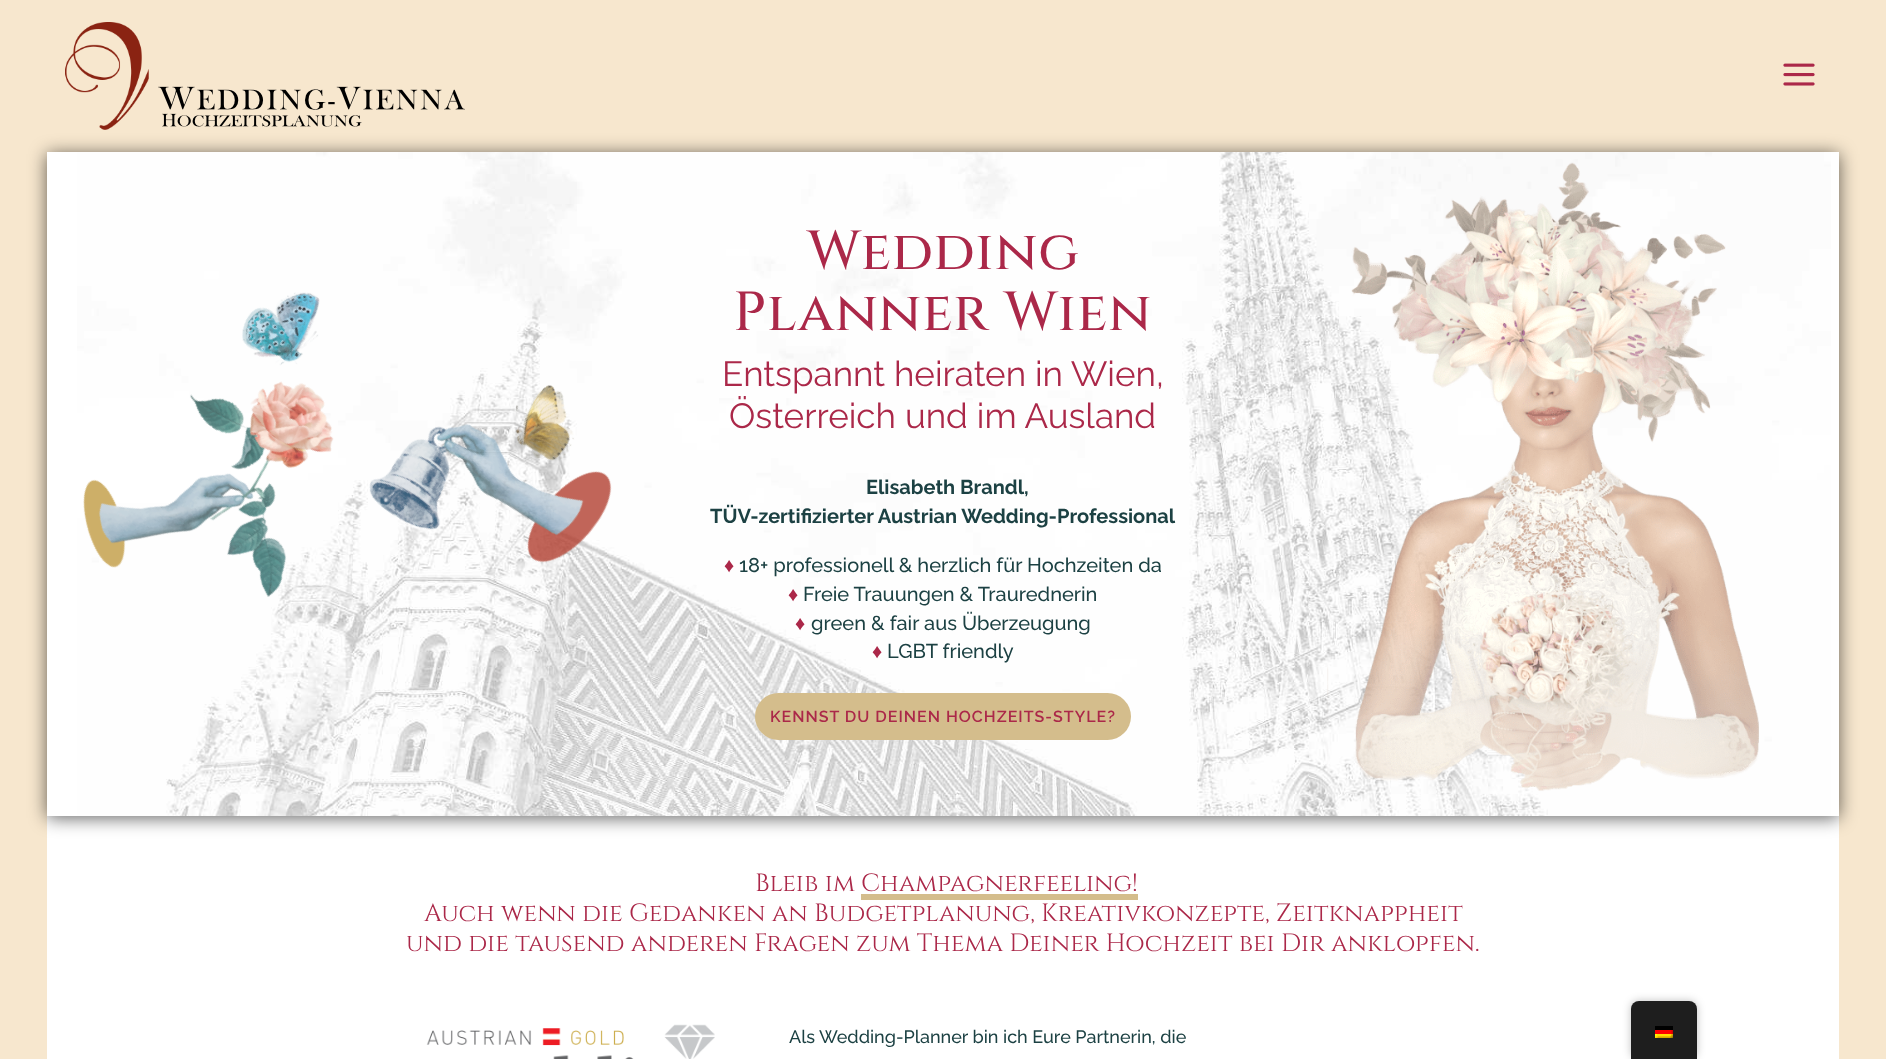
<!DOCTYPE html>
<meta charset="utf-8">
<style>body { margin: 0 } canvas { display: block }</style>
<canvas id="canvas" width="1886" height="1059"></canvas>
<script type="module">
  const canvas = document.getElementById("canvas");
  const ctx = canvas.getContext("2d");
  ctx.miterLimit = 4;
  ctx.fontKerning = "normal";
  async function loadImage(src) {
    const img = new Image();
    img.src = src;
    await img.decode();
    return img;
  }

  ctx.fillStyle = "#f7e7ce";
  ctx.fillRect(0, 0, 1886, 1059);
  ctx.fillStyle = "#ffffff";
  ctx.fillRect(47, 816, 1792, 243);
  ctx.fillStyle = "rgba(0, 0, 0, 0.61)";
  ctx.filter = "blur(9px)";
  ctx.beginPath();
  ctx.rect(47, 154, 1792, 664);
  ctx.fill();
  ctx.filter = "none";
  ctx.drawImage(await loadImage("img1.png"), 65, 22, 400, 108);
  ctx.drawImage(await loadImage("img2.png"), 1783, 63, 32, 23);
  ctx.fillStyle = "#ffffff";
  ctx.fillRect(47, 152, 1792, 664);
  ctx.drawImage(await loadImage("img3.png"), 77, 152, 1754, 664);
  ctx.drawImage(await loadImage("img4.png"), 83, 292, 529, 305);
  ctx.letterSpacing = "1px";
  ctx.font = "500 55px Cinzel";
  ctx.fillStyle = "#ab2849";
  ctx.fillText("Wedding", 807, 269);
  ctx.fillText("Planner Wien", 733, 330);
  ctx.letterSpacing = "0px";
  ctx.font = "35px Raleway";
  ctx.fillText("Entspannt heiraten in Wien,", 722, 386);
  ctx.fillText("Österreich und im Ausland", 729, 428);
  ctx.font = "bold 20px Raleway";
  ctx.fillStyle = "#1c4143";
  ctx.fillText("Elisabeth Brandl,", 866, 494);
  ctx.fillText("TÜV-zertifizierter Austrian Wedding-Professional", 710, 523);
  ctx.font = "bold 20px Liberation Sans";
  ctx.fillStyle = "#ab2849";
  ctx.fillText("♦", 724, 572);
  ctx.font = "500 20px Raleway";
  ctx.fillStyle = "#1c4143";
  ctx.fillText("18+ professionell & herzlich für Hochzeiten da", 739, 572);
  ctx.font = "bold 20px Liberation Sans";
  ctx.fillStyle = "#ab2849";
  ctx.fillText("♦", 788, 601);
  ctx.font = "500 20px Raleway";
  ctx.fillStyle = "#1c4143";
  ctx.fillText("Freie Trauungen & Traurednerin", 803, 601);
  ctx.font = "bold 20px Liberation Sans";
  ctx.fillStyle = "#ab2849";
  ctx.fillText("♦", 795, 630);
  ctx.font = "500 20px Raleway";
  ctx.fillStyle = "#1c4143";
  ctx.fillText("green & fair aus Überzeugung", 811, 630);
  ctx.font = "bold 20px Liberation Sans";
  ctx.fillStyle = "#ab2849";
  ctx.fillText("♦", 872, 658);
  ctx.font = "500 20px Raleway";
  ctx.fillStyle = "#1c4143";
  ctx.fillText("LGBT friendly", 887, 658);
  ctx.fillStyle = "#d4bd8c";
  ctx.beginPath();
  ctx.roundRect(755, 693, 376, 47, 23.5);
  ctx.fill();
  ctx.letterSpacing = "1px";
  ctx.font = "600 16px Raleway";
  ctx.fillStyle = "#ab2849";
  ctx.fillText("KENNST DU DEINEN HOCHZEITS-STYLE?", 770, 722);
  ctx.drawImage(await loadImage("img5.png"), 1327, 162, 432, 654);
  ctx.letterSpacing = "0px";
  ctx.font = "25px Cinzel";
  ctx.fillText("Bleib im Champagnerfeeling!", 755, 891);
  ctx.fillStyle = "#d4bd8c";
  ctx.fillRect(861, 894, 277, 6);
  ctx.fillStyle = "#ab2849";
  ctx.fillText("Auch wenn die Gedanken an Budgetplanung, Kreativkonzepte, Zeitknappheit", 424, 921);
  ctx.fillText("und die tausend anderen Fragen zum Thema Deiner Hochzeit bei Dir anklopfen.", 406, 951);
  ctx.drawImage(await loadImage("img6.png"), 426, 1024, 289, 35);
  ctx.font = "500 18px Raleway";
  ctx.fillStyle = "#1c4143";
  ctx.fillText("Als Wedding-Planner bin ich Eure Partnerin, die", 789, 1043);
  ctx.fillStyle = "rgba(0, 0, 0, 0.25)";
  ctx.filter = "blur(4px)";
  ctx.beginPath();
  ctx.roundRect(1631, 1001, 66, 58, 8);
  ctx.fill();
  ctx.filter = "none";
  ctx.fillStyle = "#1e1e1e";
  ctx.beginPath();
  ctx.roundRect(1631, 1001, 66, 58, [8, 8, 0, 0]);
  ctx.fill();
  ctx.drawImage(await loadImage("img7.png"), 1655, 1026, 18, 12);
</script>
